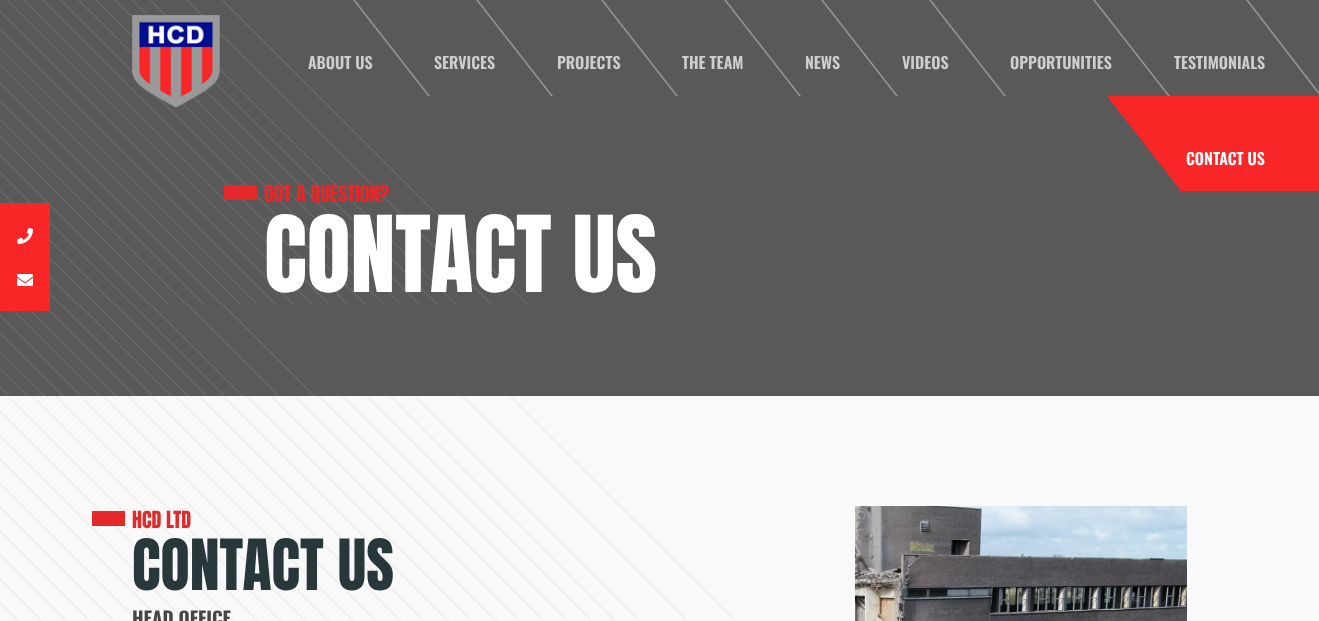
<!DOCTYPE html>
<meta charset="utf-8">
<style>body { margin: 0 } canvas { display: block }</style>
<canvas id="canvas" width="1319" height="621"></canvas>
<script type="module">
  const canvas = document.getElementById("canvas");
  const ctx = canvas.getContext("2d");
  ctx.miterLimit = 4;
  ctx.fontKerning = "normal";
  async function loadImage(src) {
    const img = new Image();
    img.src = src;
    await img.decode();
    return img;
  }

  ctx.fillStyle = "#f9f9f9";
  ctx.fillRect(0, 0, 1319, 621);
  ctx.fillStyle = "#595959";
  ctx.fillRect(0, 0, 1319, 396);
  ctx.drawImage(await loadImage("img3.png"), 0, 0, 527, 396);
  ctx.fillStyle = "#f92628";
  ctx.fillRect(0, 203, 50, 108);
  ctx.drawImage(await loadImage("img1.png"), 17, 228, 16, 16);
  ctx.drawImage(await loadImage("img2.png"), 17, 274, 16, 12);
  ctx.drawImage(await loadImage("img4.png"), 132, 15, 88, 93);
  ctx.fillStyle = "#949494";
  ctx.beginPath();
  ctx.moveTo(353, 0);
  ctx.lineTo(355, 0);
  ctx.lineTo(430, 96);
  ctx.lineTo(428, 96);
  ctx.closePath();
  ctx.fill();
  ctx.font = "600 16px Oswald";
  ctx.fillStyle = "#cecece";
  ctx.fillText("ABOUT US", 308, 69);
  ctx.fillStyle = "#949494";
  ctx.beginPath();
  ctx.moveTo(476, 0);
  ctx.lineTo(478, 0);
  ctx.lineTo(553, 96);
  ctx.lineTo(551, 96);
  ctx.closePath();
  ctx.fill();
  ctx.fillStyle = "#cecece";
  ctx.fillText("SERVICES", 434, 69);
  ctx.fillStyle = "#949494";
  ctx.beginPath();
  ctx.moveTo(601, 0);
  ctx.lineTo(603, 0);
  ctx.lineTo(678, 96);
  ctx.lineTo(676, 96);
  ctx.closePath();
  ctx.fill();
  ctx.fillStyle = "#cecece";
  ctx.fillText("PROJECTS", 557, 69);
  ctx.fillStyle = "#949494";
  ctx.beginPath();
  ctx.moveTo(724, 0);
  ctx.lineTo(726, 0);
  ctx.lineTo(801, 96);
  ctx.lineTo(799, 96);
  ctx.closePath();
  ctx.fill();
  ctx.fillStyle = "#cecece";
  ctx.fillText("THE TEAM", 682, 69);
  ctx.fillStyle = "#949494";
  ctx.beginPath();
  ctx.moveTo(821, 0);
  ctx.lineTo(823, 0);
  ctx.lineTo(898, 96);
  ctx.lineTo(896, 96);
  ctx.closePath();
  ctx.fill();
  ctx.fillStyle = "#cecece";
  ctx.fillText("NEWS", 805, 69);
  ctx.fillStyle = "#949494";
  ctx.beginPath();
  ctx.moveTo(929, 0);
  ctx.lineTo(931, 0);
  ctx.lineTo(1006, 96);
  ctx.lineTo(1004, 96);
  ctx.closePath();
  ctx.fill();
  ctx.fillStyle = "#cecece";
  ctx.fillText("VIDEOS", 902, 69);
  ctx.fillStyle = "#949494";
  ctx.beginPath();
  ctx.moveTo(1093, 0);
  ctx.lineTo(1095, 0);
  ctx.lineTo(1170, 96);
  ctx.lineTo(1168, 96);
  ctx.closePath();
  ctx.fill();
  ctx.fillStyle = "#cecece";
  ctx.fillText("OPPORTUNITIES", 1010, 69);
  ctx.fillStyle = "#949494";
  ctx.beginPath();
  ctx.moveTo(1246, 0);
  ctx.lineTo(1248, 0);
  ctx.lineTo(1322, 96);
  ctx.lineTo(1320, 96);
  ctx.closePath();
  ctx.fill();
  ctx.fillStyle = "#cecece";
  ctx.fillText("TESTIMONIALS", 1174, 69);
  ctx.fillStyle = "#f92628";
  ctx.beginPath();
  ctx.moveTo(1107, 96);
  ctx.lineTo(1246, 96);
  ctx.lineTo(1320, 191);
  ctx.lineTo(1181, 191);
  ctx.closePath();
  ctx.fill();
  ctx.fillRect(1180, 96, 139, 95);
  ctx.fillStyle = "#ffffff";
  ctx.fillText("CONTACT US", 1186, 165);
  ctx.fillStyle = "#e7282a";
  ctx.fillRect(224, 185, 33, 15);
  ctx.font = "20px Anton";
  ctx.fillText("GOT A QUESTION?", 264, 202);
  ctx.font = "90px Anton";
  ctx.fillStyle = "#ffffff";
  ctx.fillText("CONTACT US", 264, 292);
  ctx.drawImage(await loadImage("img5.png"), 0, 396, 736, 225);
  ctx.fillStyle = "#e7282a";
  ctx.fillRect(92, 511, 33, 15);
  ctx.font = "20px Anton";
  ctx.fillText("HCD LTD", 132, 528);
  ctx.font = "60px Anton";
  ctx.fillStyle = "#28373a";
  ctx.fillText("CONTACT US", 132, 590);
  ctx.font = "bold 19px Oswald";
  ctx.fillStyle = "#464646";
  ctx.fillText("HEAD OFFICE", 132, 626);
  ctx.drawImage(await loadImage("img6.png"), 855, 506, 332, 115);
</script>
